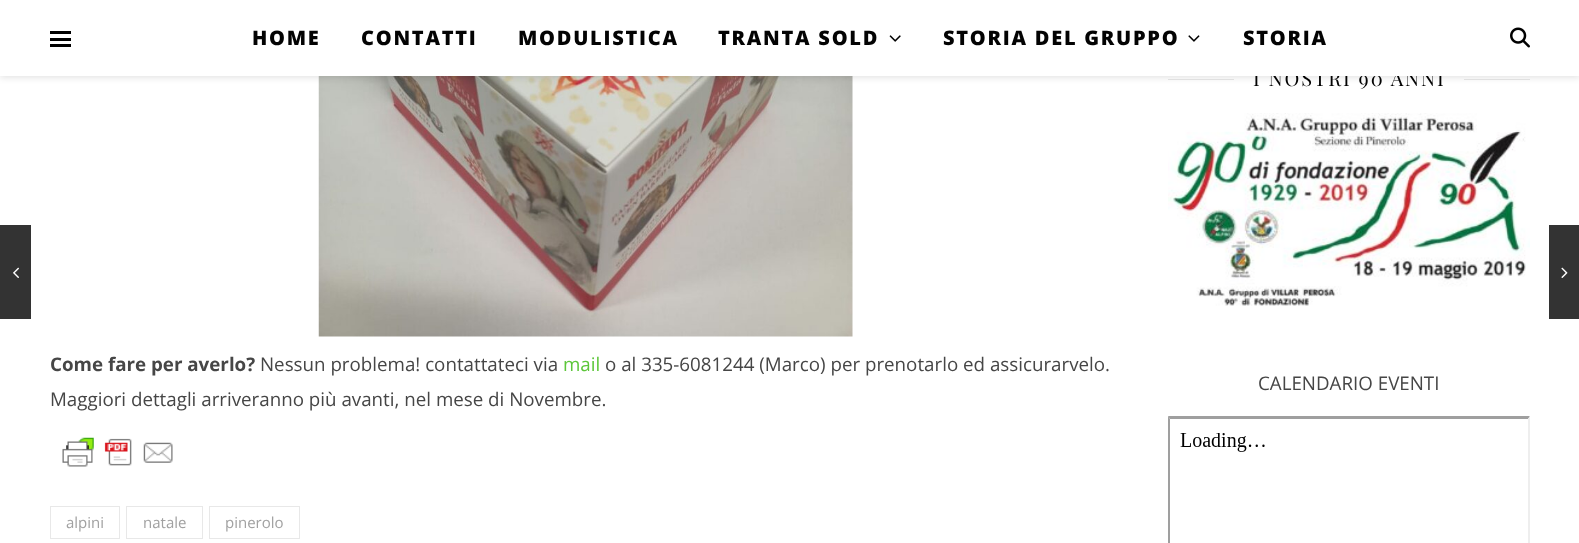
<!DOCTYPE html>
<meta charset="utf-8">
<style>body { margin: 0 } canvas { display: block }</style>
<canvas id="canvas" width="1579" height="543"></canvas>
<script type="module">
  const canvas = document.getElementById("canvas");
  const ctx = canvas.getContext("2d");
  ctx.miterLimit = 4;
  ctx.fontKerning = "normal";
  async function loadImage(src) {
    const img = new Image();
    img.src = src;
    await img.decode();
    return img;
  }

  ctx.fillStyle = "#ffffff";
  ctx.fillRect(0, 0, 1579, 543);
  ctx.fillStyle = "#e8e8e8";
  ctx.fillRect(1168, 79, 66, 1);
  ctx.fillRect(1464, 79, 66, 1);
  ctx.drawImage(await loadImage("img8.png"), 318, 76, 535, 261);
  ctx.fillStyle = "rgba(0, 0, 0, 0.1)";
  ctx.filter = "blur(3px)";
  ctx.beginPath();
  ctx.rect(0, 1, 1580, 77);
  ctx.fill();
  ctx.filter = "none";
  ctx.letterSpacing = "1.9px";
  ctx.font = "20px Playfair Display";
  ctx.fillStyle = "#030303";
  ctx.fillText("I NOSTRI 90 ANNI", 1253, 86);
  ctx.fillStyle = "#ffffff";
  ctx.fillRect(0, 0, 1579, 76);
  ctx.fillStyle = "#000000";
  ctx.fillRect(50, 31, 21, 3);
  ctx.fillRect(50, 38, 21, 3);
  ctx.fillRect(50, 44, 21, 3);
  ctx.letterSpacing = "1.75px";
  ctx.font = "800 20px Open Sans";
  ctx.fillStyle = "#030303";
  ctx.fillText("HOME", 252, 45);
  ctx.fillText("CONTATTI", 361, 45);
  ctx.fillText("MODULISTICA", 518, 45);
  ctx.fillText("TRANTA SOLD", 718, 45);
  ctx.drawImage(await loadImage("img1.png"), 889, 35, 12, 7);
  ctx.fillText("STORIA DEL GRUPPO", 943, 45);
  ctx.drawImage(await loadImage("img2.png"), 1188, 35, 12, 7);
  ctx.fillText("STORIA", 1243, 45);
  ctx.drawImage(await loadImage("img3.png"), 1510, 27, 20, 21);
  ctx.drawImage(await loadImage("img4.png"), 1168, 113, 362, 193);
  ctx.letterSpacing = "0px";
  ctx.font = "18.75px Open Sans";
  ctx.fillStyle = "#464646";
  ctx.fillText("CALENDARIO EVENTI", 1258, 390);
  ctx.fillStyle = "#9f9f9f";
  ctx.beginPath();
  ctx.moveTo(1168, 416);
  ctx.lineTo(1530, 416);
  ctx.lineTo(1528, 419);
  ctx.lineTo(1170, 419);
  ctx.closePath();
  ctx.fill();
  ctx.beginPath();
  ctx.moveTo(1168, 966);
  ctx.lineTo(1168, 416);
  ctx.lineTo(1170, 419);
  ctx.lineTo(1170, 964);
  ctx.closePath();
  ctx.fill();
  ctx.drawImage(await loadImage("img5.png"), 1180, 433, 85, 19);
  ctx.fillStyle = "#eeeeee";
  ctx.beginPath();
  ctx.moveTo(1530, 416);
  ctx.lineTo(1530, 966);
  ctx.lineTo(1528, 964);
  ctx.lineTo(1528, 419);
  ctx.closePath();
  ctx.fill();
  ctx.fillStyle = "#333333";
  ctx.fillRect(0, 225, 31, 94);
  ctx.drawImage(await loadImage("img6.png"), 13, 267, 6, 11);
  ctx.fillRect(1549, 225, 30, 94);
  ctx.drawImage(await loadImage("img7.png"), 1561, 267, 7, 11);
  ctx.font = "bold 18.75px Open Sans";
  ctx.fillStyle = "#464646";
  ctx.fillText("Come fare per averlo?", 50, 371);
  ctx.font = "18.75px Open Sans";
  ctx.fillText("Nessun problema! contattateci via", 260, 371);
  ctx.fillStyle = "#5cc639";
  ctx.fillText("mail", 563, 371);
  ctx.fillStyle = "#464646";
  ctx.fillText("o al 335-6081244 (Marco) per prenotarlo ed assicurarvelo.", 605, 371);
  ctx.fillText("Maggiori dettagli arriveranno più avanti, nel mese di Novembre.", 50, 406);
  ctx.drawImage(await loadImage("img9.png"), 62, 437, 111, 30);
  ctx.strokeStyle = "#e8e8e8";
  ctx.strokeRect(50.5, 506.5, 69, 32);
  ctx.font = "15px Open Sans";
  ctx.fillStyle = "#a1a1a1";
  ctx.fillText("alpini", 66, 528);
  ctx.strokeRect(126.5, 506.5, 76, 32);
  ctx.fillText("natale", 143, 528);
  ctx.strokeRect(209.5, 506.5, 90, 32);
  ctx.fillText("pinerolo", 225, 528);
</script>
